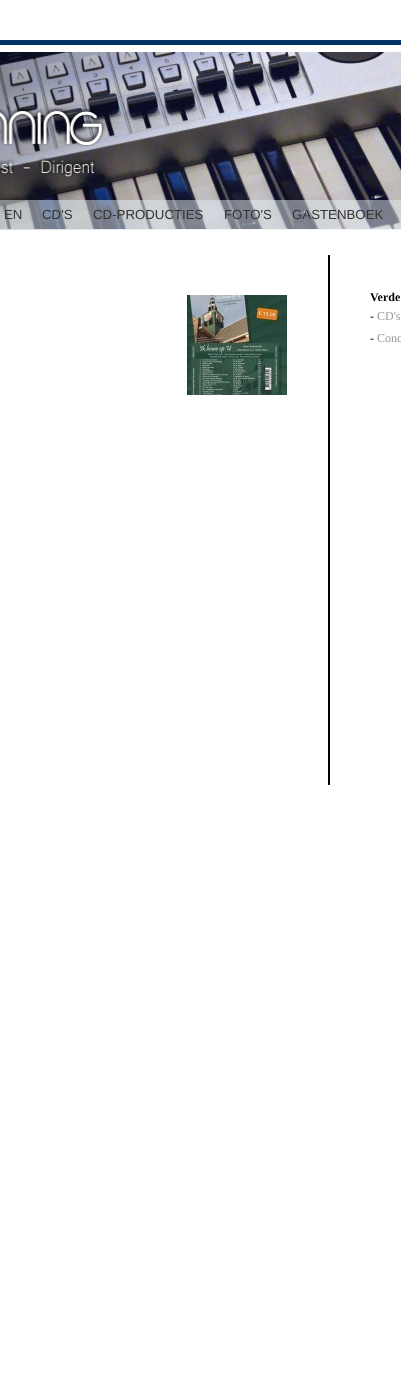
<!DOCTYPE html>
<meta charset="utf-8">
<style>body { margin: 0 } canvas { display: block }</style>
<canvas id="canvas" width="401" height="1374"></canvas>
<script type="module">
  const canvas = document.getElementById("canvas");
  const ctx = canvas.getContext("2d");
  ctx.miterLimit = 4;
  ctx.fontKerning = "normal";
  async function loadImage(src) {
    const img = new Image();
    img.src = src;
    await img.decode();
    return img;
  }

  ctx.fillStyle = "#ffffff";
  ctx.fillRect(0, 0, 401, 1374);
  ctx.fillStyle = "#003366";
  ctx.fillRect(0, 40, 401, 5);
  ctx.drawImage(await loadImage("img1.png"), 0, 52, 401, 177);
  ctx.drawImage(await loadImage("img2.png"), 0, 52, 282, 178);
  ctx.fillStyle = "rgba(228, 237, 244, 0.5)";
  ctx.fillRect(0, 200, 401, 30);
  ctx.font = "13.25px Liberation Sans";
  ctx.fillStyle = "#333333";
  ctx.fillText("EN", 4, 219);
  ctx.fillText("CD'S", 42, 219);
  ctx.fillText("CD-PRODUCTIES", 93, 219);
  ctx.fillText("FOTO'S", 224, 219);
  ctx.fillText("GASTENBOEK", 292, 219);
  ctx.drawImage(await loadImage("img3.png"), 187, 295, 100, 100);
  ctx.fillStyle = "#000000";
  ctx.fillRect(328, 255, 2, 530);
  ctx.font = "bold 12px Liberation Serif";
  ctx.fillText("Verde", 370, 301);
  ctx.font = "12px Liberation Serif";
  ctx.fillText("-", 370, 320);
  ctx.fillStyle = "#999999";
  ctx.fillText("CD's", 377, 320);
  ctx.fillStyle = "#000000";
  ctx.fillText("-", 370, 342);
  ctx.fillStyle = "#999999";
  ctx.fillText("Conc", 377, 342);
</script>
